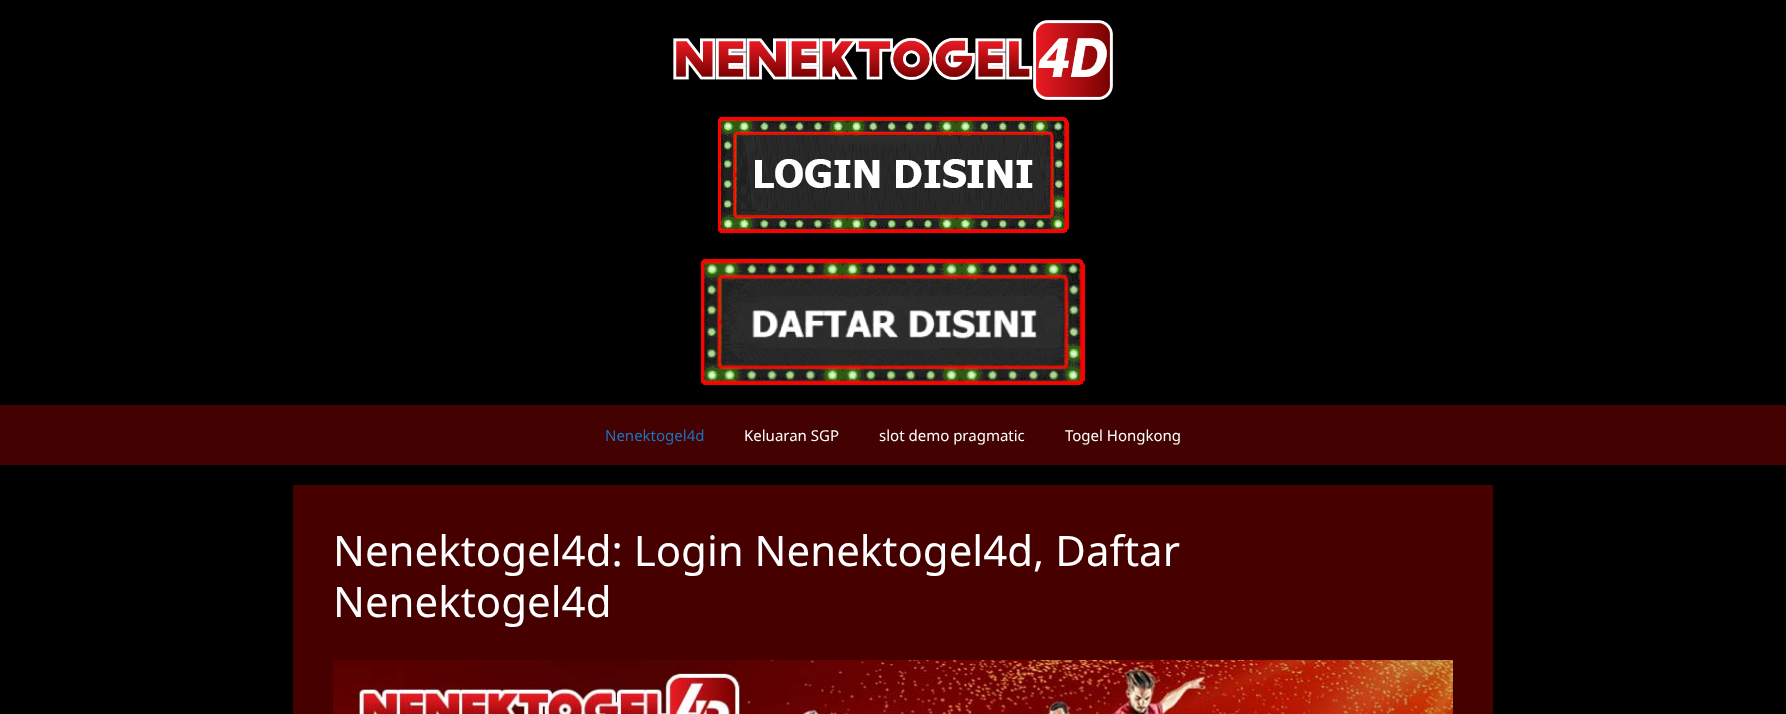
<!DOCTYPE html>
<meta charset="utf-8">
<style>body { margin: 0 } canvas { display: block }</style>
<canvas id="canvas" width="1786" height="714"></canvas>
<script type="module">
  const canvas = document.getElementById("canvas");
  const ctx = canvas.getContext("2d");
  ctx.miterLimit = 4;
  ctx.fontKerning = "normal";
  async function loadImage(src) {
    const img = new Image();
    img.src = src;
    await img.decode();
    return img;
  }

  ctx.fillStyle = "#000000";
  ctx.fillRect(0, 0, 1786, 714);
  ctx.drawImage(await loadImage("img1.png"), 673, 20, 440, 80);
  ctx.drawImage(await loadImage("img2.png"), 718, 117, 351, 116);
  ctx.drawImage(await loadImage("img3.png"), 701, 259, 384, 126);
  ctx.fillStyle = "#440101";
  ctx.fillRect(0, 405, 1786, 60);
  ctx.font = "15px Noto Sans";
  ctx.fillStyle = "#1e73be";
  ctx.fillText("Nenektogel4d", 605, 441);
  ctx.fillStyle = "#ffffff";
  ctx.fillText("Keluaran SGP", 744, 441);
  ctx.fillText("slot demo pragmatic", 879, 441);
  ctx.fillText("Togel Hongkong", 1065, 441);
  ctx.fillStyle = "#460000";
  ctx.fillRect(293, 485, 1200, 229);
  ctx.font = "42px Noto Sans";
  ctx.fillStyle = "#ffffff";
  ctx.fillText("Nenektogel4d: Login Nenektogel4d, Daftar", 333, 566);
  ctx.fillText("Nenektogel4d", 333, 617);
  ctx.drawImage(await loadImage("img4.png"), 333, 660, 1120, 54);
</script>
